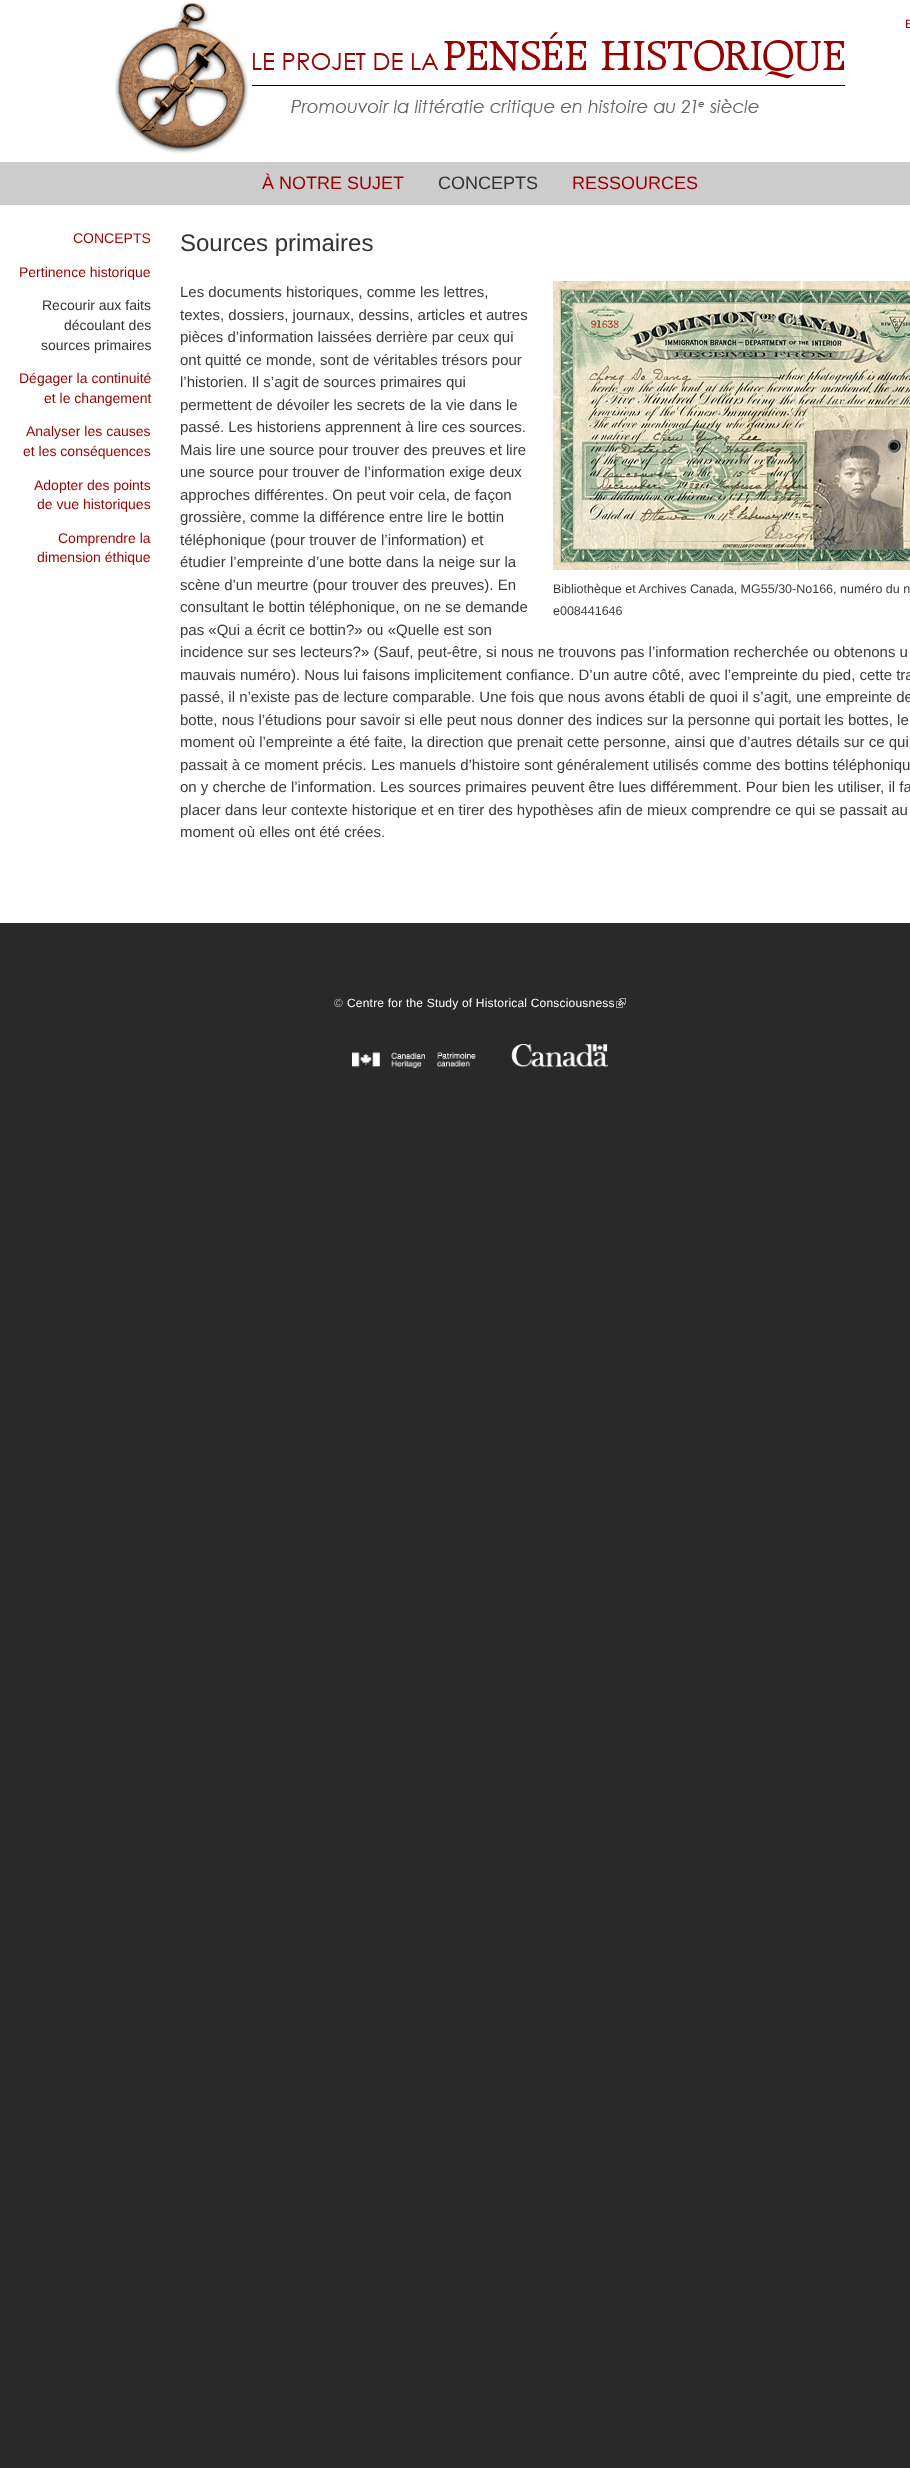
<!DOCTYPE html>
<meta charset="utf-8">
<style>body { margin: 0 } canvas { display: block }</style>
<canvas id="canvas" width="910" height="2468"></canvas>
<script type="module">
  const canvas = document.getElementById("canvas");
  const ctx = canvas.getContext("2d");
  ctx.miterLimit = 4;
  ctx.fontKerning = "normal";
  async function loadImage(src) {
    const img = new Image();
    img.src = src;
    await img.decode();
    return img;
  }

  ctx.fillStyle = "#292929";
  ctx.fillRect(0, 0, 910, 2468);
  ctx.fillStyle = "#ffffff";
  ctx.fillRect(0, 0, 910, 923);
  ctx.drawImage(await loadImage("img1.png"), 115, 2, 730, 152);
  ctx.font = "12px Liberation Sans";
  ctx.fillStyle = "#990000";
  ctx.fillText("E", 905, 28);
  ctx.fillStyle = "#cccccc";
  ctx.fillRect(0, 162, 910, 43);
  ctx.font = "18px Liberation Sans";
  ctx.fillStyle = "#990000";
  ctx.fillText("À NOTRE SUJET", 262, 189);
  ctx.fillStyle = "#333333";
  ctx.fillText("CONCEPTS", 438, 189);
  ctx.fillStyle = "#990000";
  ctx.fillText("RESSOURCES", 572, 189);
  ctx.font = "14px Liberation Sans";
  ctx.fillText("CONCEPTS", 73, 243);
  ctx.fillText("Pertinence historique", 19, 277);
  ctx.fillStyle = "#333333";
  ctx.fillText("Recourir aux faits", 42, 310);
  ctx.fillText("découlant des", 64, 330);
  ctx.fillText("sources primaires", 41, 350);
  ctx.fillStyle = "#990000";
  ctx.fillText("Dégager la continuité", 19, 383);
  ctx.fillText("et le changement", 44, 403);
  ctx.fillText("Analyser les causes", 26, 436);
  ctx.fillText("et les conséquences", 23, 456);
  ctx.fillText("Adopter des points", 34, 490);
  ctx.fillText("de vue historiques", 37, 509);
  ctx.fillText("Comprendre la", 58, 543);
  ctx.fillText("dimension éthique", 37, 562);
  ctx.font = "24px Liberation Sans";
  ctx.fillStyle = "#333333";
  ctx.fillText("Sources primaires", 180, 251);
  ctx.font = "15px Liberation Sans";
  ctx.fillStyle = "#3b3b3b";
  ctx.fillText("Les documents historiques, comme les lettres,", 180, 297);
  ctx.fillText("textes, dossiers, journaux, dessins, articles et autres", 180, 320);
  ctx.fillText("pièces d’information laissées derrière par ceux qui", 180, 342);
  ctx.fillText("ont quitté ce monde, sont de véritables trésors pour", 180, 365);
  ctx.fillText("l’historien. Il s’agit de sources primaires qui", 180, 387);
  ctx.fillText("permettent de dévoiler les secrets de la vie dans le", 180, 410);
  ctx.fillText("passé. Les historiens apprennent à lire ces sources.", 180, 432);
  ctx.fillText("Mais lire une source pour trouver des preuves et lire", 180, 455);
  ctx.fillText("une source pour trouver de l’information exige deux", 180, 477);
  ctx.fillText("approches différentes. On peut voir cela, de façon", 180, 500);
  ctx.fillText("grossière, comme la différence entre lire le bottin", 180, 522);
  ctx.fillText("téléphonique (pour trouver de l’information) et", 180, 545);
  ctx.fillText("étudier l’empreinte d’une botte dans la neige sur la", 180, 567);
  ctx.fillText("scène d’un meurtre (pour trouver des preuves). En", 180, 590);
  ctx.fillText("consultant le bottin téléphonique, on ne se demande", 180, 612);
  ctx.fillText("pas «Qui a écrit ce bottin?» ou «Quelle est son", 180, 635);
  ctx.fillText("incidence sur ses lecteurs?» (Sauf, peut-être, si nous ne trouvons pas l’information recherchée ou obtenons u", 180, 657);
  ctx.fillText("mauvais numéro). Nous lui faisons implicitement confiance. D’un autre côté, avec l’empreinte du pied, cette tra", 180, 680);
  ctx.fillText("passé, il n’existe pas de lecture comparable. Une fois que nous avons établi de quoi il s’agit, une empreinte de", 180, 702);
  ctx.fillText("botte, nous l’étudions pour savoir si elle peut nous donner des indices sur la personne qui portait les bottes, le", 180, 725);
  ctx.fillText("moment où l’empreinte a été faite, la direction que prenait cette personne, ainsi que d’autres détails sur ce qui", 180, 747);
  ctx.fillText("passait à ce moment précis. Les manuels d’histoire sont généralement utilisés comme des bottins téléphoniqu", 180, 770);
  ctx.fillText("on y cherche de l’information. Les sources primaires peuvent être lues différemment. Pour bien les utiliser, il fa", 180, 792);
  ctx.fillText("placer dans leur contexte historique et en tirer des hypothèses afin de mieux comprendre ce qui se passait au", 180, 815);
  ctx.fillText("moment où elles ont été crées.", 180, 837);
  ctx.drawImage(await loadImage("img2.png"), 553, 281, 357, 289);
  ctx.font = "12.5px Liberation Sans";
  ctx.fillText("Bibliothèque et Archives Canada, MG55/30-No166, numéro du n", 553, 593);
  ctx.fillText("e008441646", 553, 615);
  ctx.letterSpacing = "0.2px";
  ctx.font = "12px Liberation Sans";
  ctx.fillStyle = "#b4b4b4";
  ctx.fillText("©", 334, 1007);
  ctx.fillStyle = "#ffffff";
  ctx.fillText("Centre for the Study of Historical Consciousness", 347, 1007);
  ctx.drawImage(await loadImage("img3.png"), 616, 998, 10, 10);
  ctx.drawImage(await loadImage("img4.png"), 352, 1044, 256, 24);
</script>
